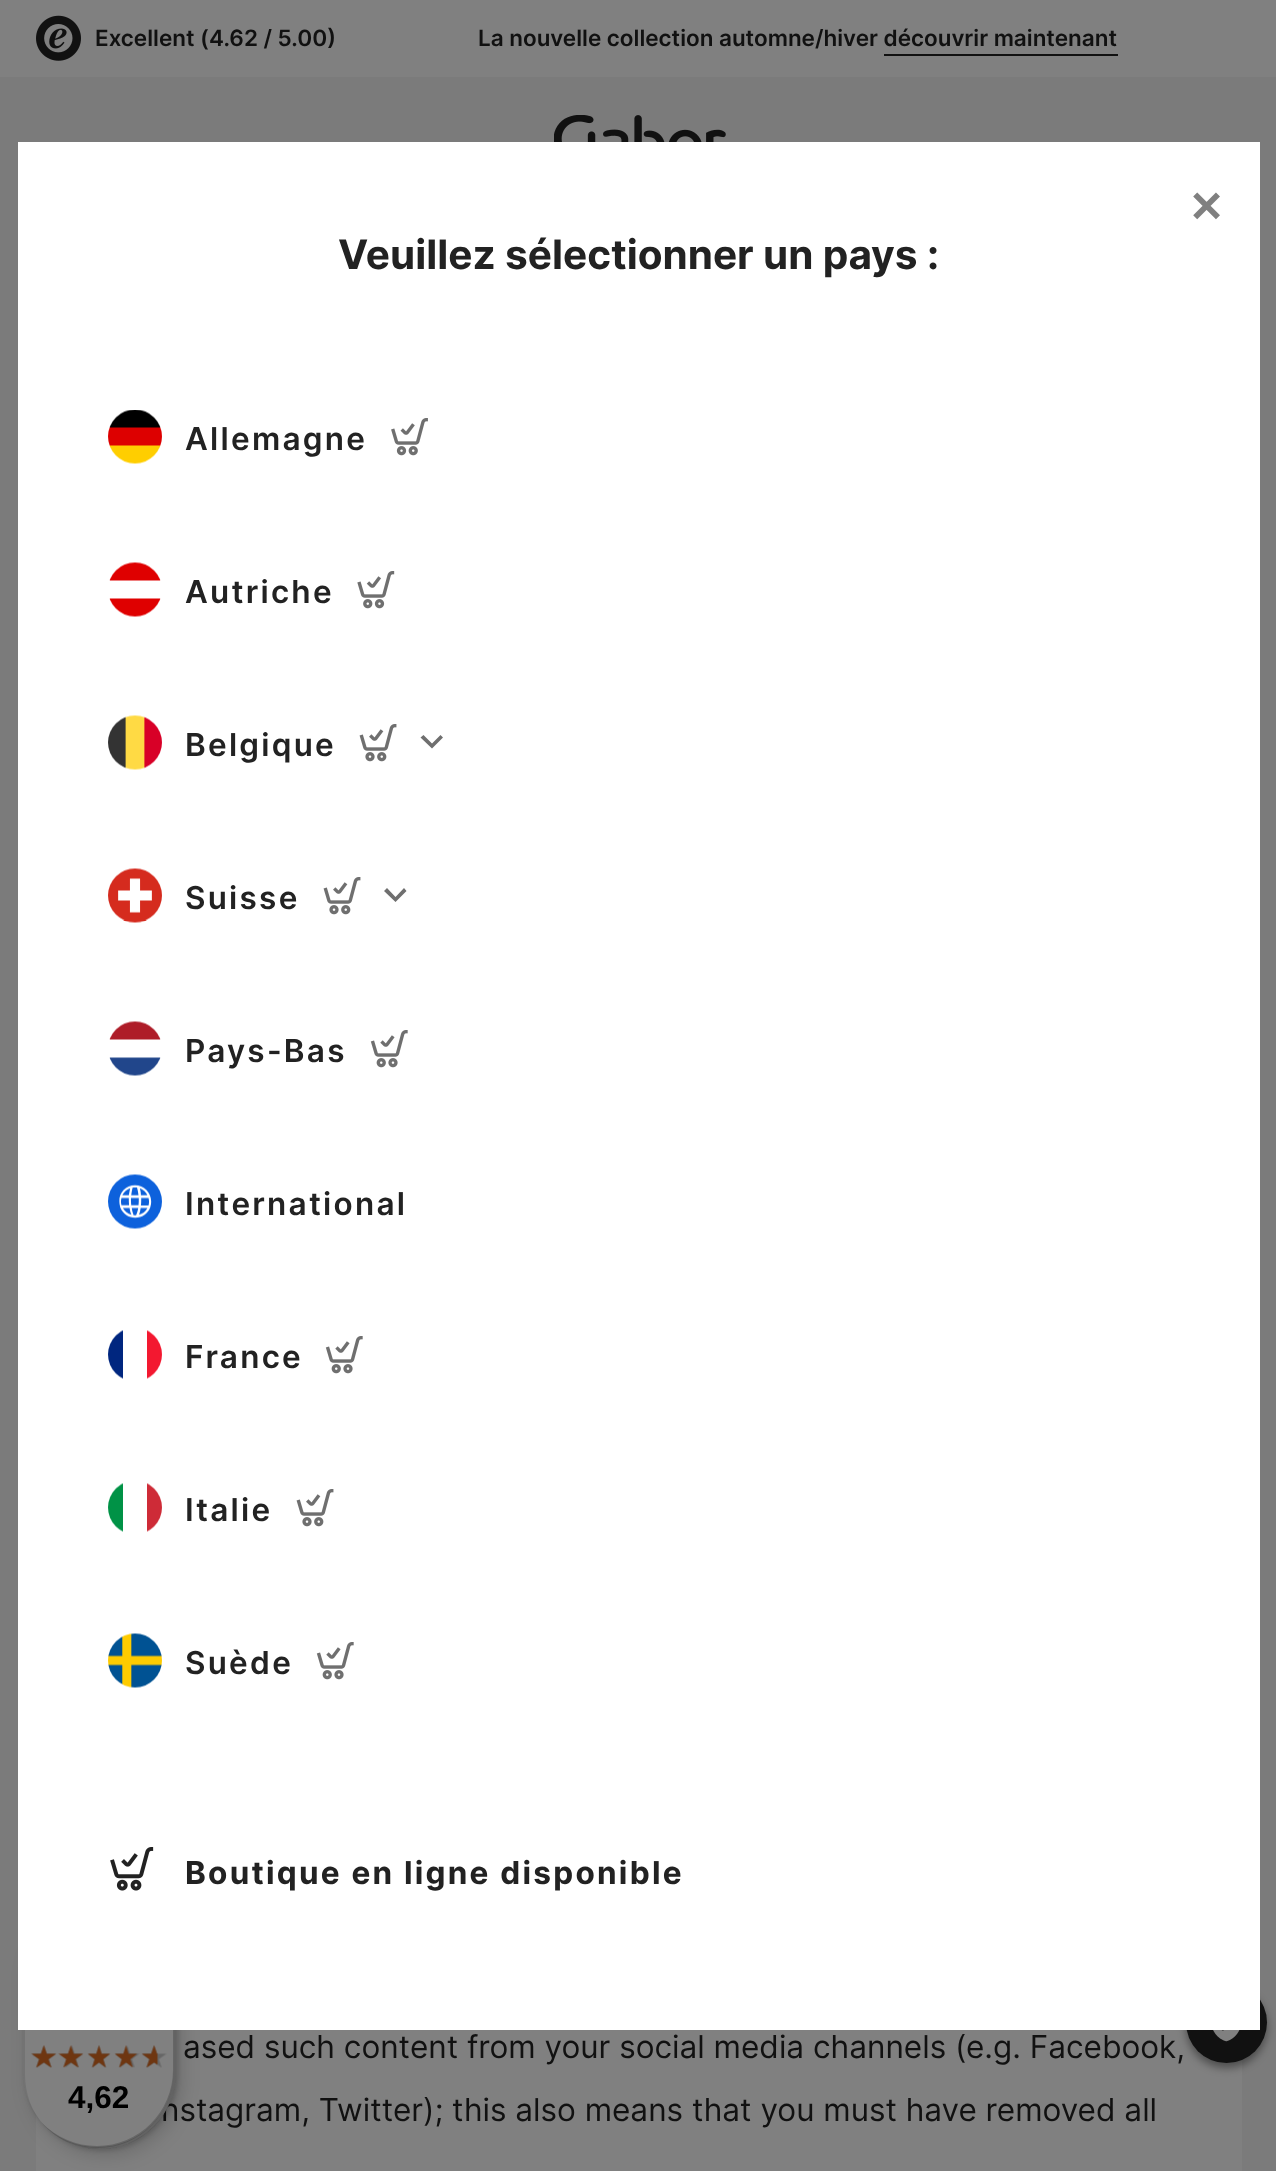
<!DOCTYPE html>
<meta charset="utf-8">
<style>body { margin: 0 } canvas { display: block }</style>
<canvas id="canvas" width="1276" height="2171"></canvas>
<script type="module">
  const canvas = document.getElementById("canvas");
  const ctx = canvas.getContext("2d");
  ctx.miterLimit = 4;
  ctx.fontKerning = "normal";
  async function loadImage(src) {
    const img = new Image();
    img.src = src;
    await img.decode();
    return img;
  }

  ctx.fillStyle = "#7b7b7b";
  ctx.fillRect(0, 0, 1276, 2171);
  ctx.fillStyle = "#808080";
  ctx.fillRect(0, 0, 1276, 77);
  ctx.drawImage(await loadImage("img1.png"), 36, 15, 45, 46);
  ctx.font = "600 22.5px Inter";
  ctx.fillStyle = "#111111";
  ctx.fillText("Excellent (4.62 / 5.00)", 95, 46);
  ctx.fillText("La nouvelle collection automne/hiver découvrir maintenant", 478, 46);
  ctx.fillRect(884, 54, 234, 2);
  ctx.drawImage(await loadImage("img2.png"), 554, 115, 172, 27);
  ctx.fillStyle = "#808080";
  ctx.fillRect(36, 2030, 1206, 141);
  ctx.font = "31.5px Inter";
  ctx.fillStyle = "#111111";
  ctx.fillText("ased such content from your social media channels (e.g. Facebook,", 183, 2058);
  ctx.fillText("nstagram, Twitter); this also means that you must have removed all", 161, 2121);
  ctx.fillStyle = "rgba(0, 0, 0, 0.4)";
  ctx.filter = "blur(4.5px)";
  ctx.beginPath();
  ctx.roundRect(1186, 1987, 81, 81, 40.5);
  ctx.fill();
  ctx.filter = "none";
  ctx.fillStyle = "#111111";
  ctx.beginPath();
  ctx.arc(1226.5, 2022.5, 40.5, 0, Math.PI * 2);
  ctx.fill();
  ctx.drawImage(await loadImage("img3.png"), 1213, 2030, 27, 12);
  ctx.fillStyle = "rgba(0, 0, 0, 0.15)";
  ctx.filter = "blur(9px)";
  ctx.beginPath();
  ctx.roundRect(29, 1904, 153, 252, 76.5);
  ctx.fill();
  ctx.filter = "none";
  ctx.filter = "blur(2px)";
  ctx.beginPath();
  ctx.roundRect(25, 1899, 153, 252, 76.5);
  ctx.fill();
  ctx.filter = "none";
  ctx.fillStyle = "#808080";
  ctx.beginPath();
  ctx.roundRect(23, 1897, 153, 252, 76.5);
  ctx.fill();
  ctx.fillStyle = "rgba(0, 0, 0, 0.1)";
  ctx.beginPath();
  ctx.moveTo(101, 1899);
  ctx.bezierCurveTo(124, 1899, 144, 1909, 158, 1925);
  ctx.bezierCurveTo(144, 1908, 123, 1897, 100, 1897);
  ctx.bezierCurveTo(57, 1897, 23, 1931, 23, 1974);
  ctx.lineTo(23, 2072);
  ctx.bezierCurveTo(23, 2093, 31, 2112, 44, 2125);
  ctx.bezierCurveTo(32, 2112, 25, 2094, 25, 2074);
  ctx.lineTo(25, 1976);
  ctx.bezierCurveTo(25, 1933, 59, 1899, 101, 1899);
  ctx.closePath();
  ctx.fill();
  ctx.fillStyle = "rgba(0, 0, 0, 0.2)";
  ctx.beginPath();
  ctx.moveTo(42, 2123);
  ctx.bezierCurveTo(56, 2139, 77, 2149, 100, 2149);
  ctx.bezierCurveTo(142, 2149, 176, 2115, 176, 2072);
  ctx.lineTo(176, 1974);
  ctx.bezierCurveTo(176, 1951, 166, 1930, 150, 1916);
  ctx.bezierCurveTo(164, 1930, 173, 1950, 173, 1971);
  ctx.lineTo(173, 2070);
  ctx.bezierCurveTo(173, 2112, 139, 2146, 97, 2146);
  ctx.bezierCurveTo(76, 2146, 56, 2137, 42, 2123);
  ctx.closePath();
  ctx.fill();
  ctx.fillStyle = "rgba(25, 25, 25, 0.2)";
  ctx.beginPath();
  ctx.moveTo(47, 2128);
  ctx.bezierCurveTo(60, 2141, 79, 2149, 100, 2149);
  ctx.bezierCurveTo(142, 2149, 176, 2115, 176, 2072);
  ctx.lineTo(176, 1974);
  ctx.bezierCurveTo(176, 1951, 166, 1930, 150, 1916);
  ctx.bezierCurveTo(165, 1930, 174, 1950, 174, 1972);
  ctx.lineTo(174, 2071);
  ctx.bezierCurveTo(174, 2113, 140, 2147, 98, 2147);
  ctx.bezierCurveTo(78, 2147, 60, 2140, 47, 2128);
  ctx.closePath();
  ctx.fill();
  ctx.fillStyle = "rgba(128, 128, 128, 0.3)";
  ctx.beginPath();
  ctx.moveTo(51, 2132);
  ctx.bezierCurveTo(64, 2142, 81, 2149, 100, 2149);
  ctx.bezierCurveTo(142, 2149, 176, 2115, 176, 2072);
  ctx.lineTo(176, 1974);
  ctx.bezierCurveTo(176, 1946, 161, 1921, 139, 1908);
  ctx.bezierCurveTo(160, 1921, 174, 1945, 174, 1972);
  ctx.lineTo(174, 2071);
  ctx.bezierCurveTo(174, 2113, 140, 2148, 98, 2148);
  ctx.bezierCurveTo(80, 2148, 64, 2142, 51, 2132);
  ctx.closePath();
  ctx.fill();
  ctx.fillStyle = "#ffffff";
  ctx.fillRect(18, 142, 1242, 1888);
  ctx.font = "bold 54px 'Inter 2'";
  ctx.fillStyle = "#808080";
  ctx.fillText("×", 1188, 222);
  ctx.font = "bold 40.5px Inter";
  ctx.fillStyle = "#222222";
  ctx.fillText("Veuillez sélectionner un pays :", 338, 269);
  ctx.drawImage(await loadImage("img4.png"), 108, 410, 54, 54);
  ctx.letterSpacing = "2.25px";
  ctx.font = "600 31.5px Inter";
  ctx.fillText("Allemagne", 185, 450);
  ctx.drawImage(await loadImage("img5.png"), 391, 418, 37, 38);
  ctx.drawImage(await loadImage("img6.png"), 109, 562, 52, 55);
  ctx.fillText("Autriche", 185, 603);
  ctx.drawImage(await loadImage("img7.png"), 357, 571, 38, 38);
  ctx.drawImage(await loadImage("img8.png"), 108, 715, 54, 55);
  ctx.fillText("Belgique", 185, 756);
  ctx.drawImage(await loadImage("img9.png"), 359, 724, 38, 38);
  ctx.fillStyle = "#6f6f6f";
  ctx.beginPath();
  ctx.moveTo(423.5, 735);
  ctx.lineTo(432, 743.5);
  ctx.lineTo(440.5, 735);
  ctx.lineTo(443, 737.5);
  ctx.lineTo(432, 748.5);
  ctx.lineTo(420.5, 737.5);
  ctx.closePath();
  ctx.fill();
  ctx.drawImage(await loadImage("img10.png"), 108, 868, 54, 55);
  ctx.fillStyle = "#222222";
  ctx.fillText("Suisse", 185, 909);
  ctx.drawImage(await loadImage("img9.png"), 323, 877, 38, 38);
  ctx.fillStyle = "#6f6f6f";
  ctx.beginPath();
  ctx.moveTo(387, 888);
  ctx.lineTo(395.5, 897);
  ctx.lineTo(404, 888);
  ctx.lineTo(406.5, 891);
  ctx.lineTo(395.5, 902);
  ctx.lineTo(384, 891);
  ctx.closePath();
  ctx.fill();
  ctx.drawImage(await loadImage("img11.png"), 109, 1021, 52, 55);
  ctx.fillStyle = "#222222";
  ctx.fillText("Pays-Bas", 185, 1062);
  ctx.drawImage(await loadImage("img12.png"), 370, 1030, 38, 38);
  ctx.drawImage(await loadImage("img13.png"), 108, 1174, 54, 55);
  ctx.fillText("International", 185, 1215);
  ctx.drawImage(await loadImage("img14.png"), 108, 1330, 54, 49);
  ctx.fillText("France", 185, 1368);
  ctx.drawImage(await loadImage("img12.png"), 325, 1336, 38, 38);
  ctx.drawImage(await loadImage("img15.png"), 108, 1483, 54, 49);
  ctx.fillText("Italie", 185, 1521);
  ctx.drawImage(await loadImage("img9.png"), 296, 1489, 38, 38);
  ctx.drawImage(await loadImage("img16.png"), 108, 1633, 54, 55);
  ctx.fillText("Suède", 185, 1674);
  ctx.drawImage(await loadImage("img12.png"), 316, 1642, 38, 38);
  ctx.drawImage(await loadImage("img17.png"), 110, 1847, 44, 44);
  ctx.font = "bold 31.5px Inter";
  ctx.fillText("Boutique en ligne disponible", 185, 1884);
  ctx.drawImage(await loadImage("img18.png"), 31, 2045, 25, 23);
  ctx.drawImage(await loadImage("img19.png"), 61, 2045, 22, 23);
  ctx.drawImage(await loadImage("img20.png"), 88, 2045, 22, 23);
  ctx.drawImage(await loadImage("img21.png"), 115, 2045, 25, 23);
  ctx.drawImage(await loadImage("img22.png"), 142, 2045, 25, 23);
  ctx.drawImage(await loadImage("img23.png"), 31, 2045, 26, 23);
  ctx.drawImage(await loadImage("img24.png"), 58, 2045, 26, 23);
  ctx.drawImage(await loadImage("img25.png"), 87, 2045, 24, 23);
  ctx.drawImage(await loadImage("img26.png"), 114, 2045, 24, 23);
  ctx.drawImage(await loadImage("img27.png"), 141, 2045, 17, 23);
  ctx.letterSpacing = "0px";
  ctx.font = "bold 31.5px Liberation Sans";
  ctx.fillStyle = "#000000";
  ctx.fillText("4,62", 68, 2108);
</script>
